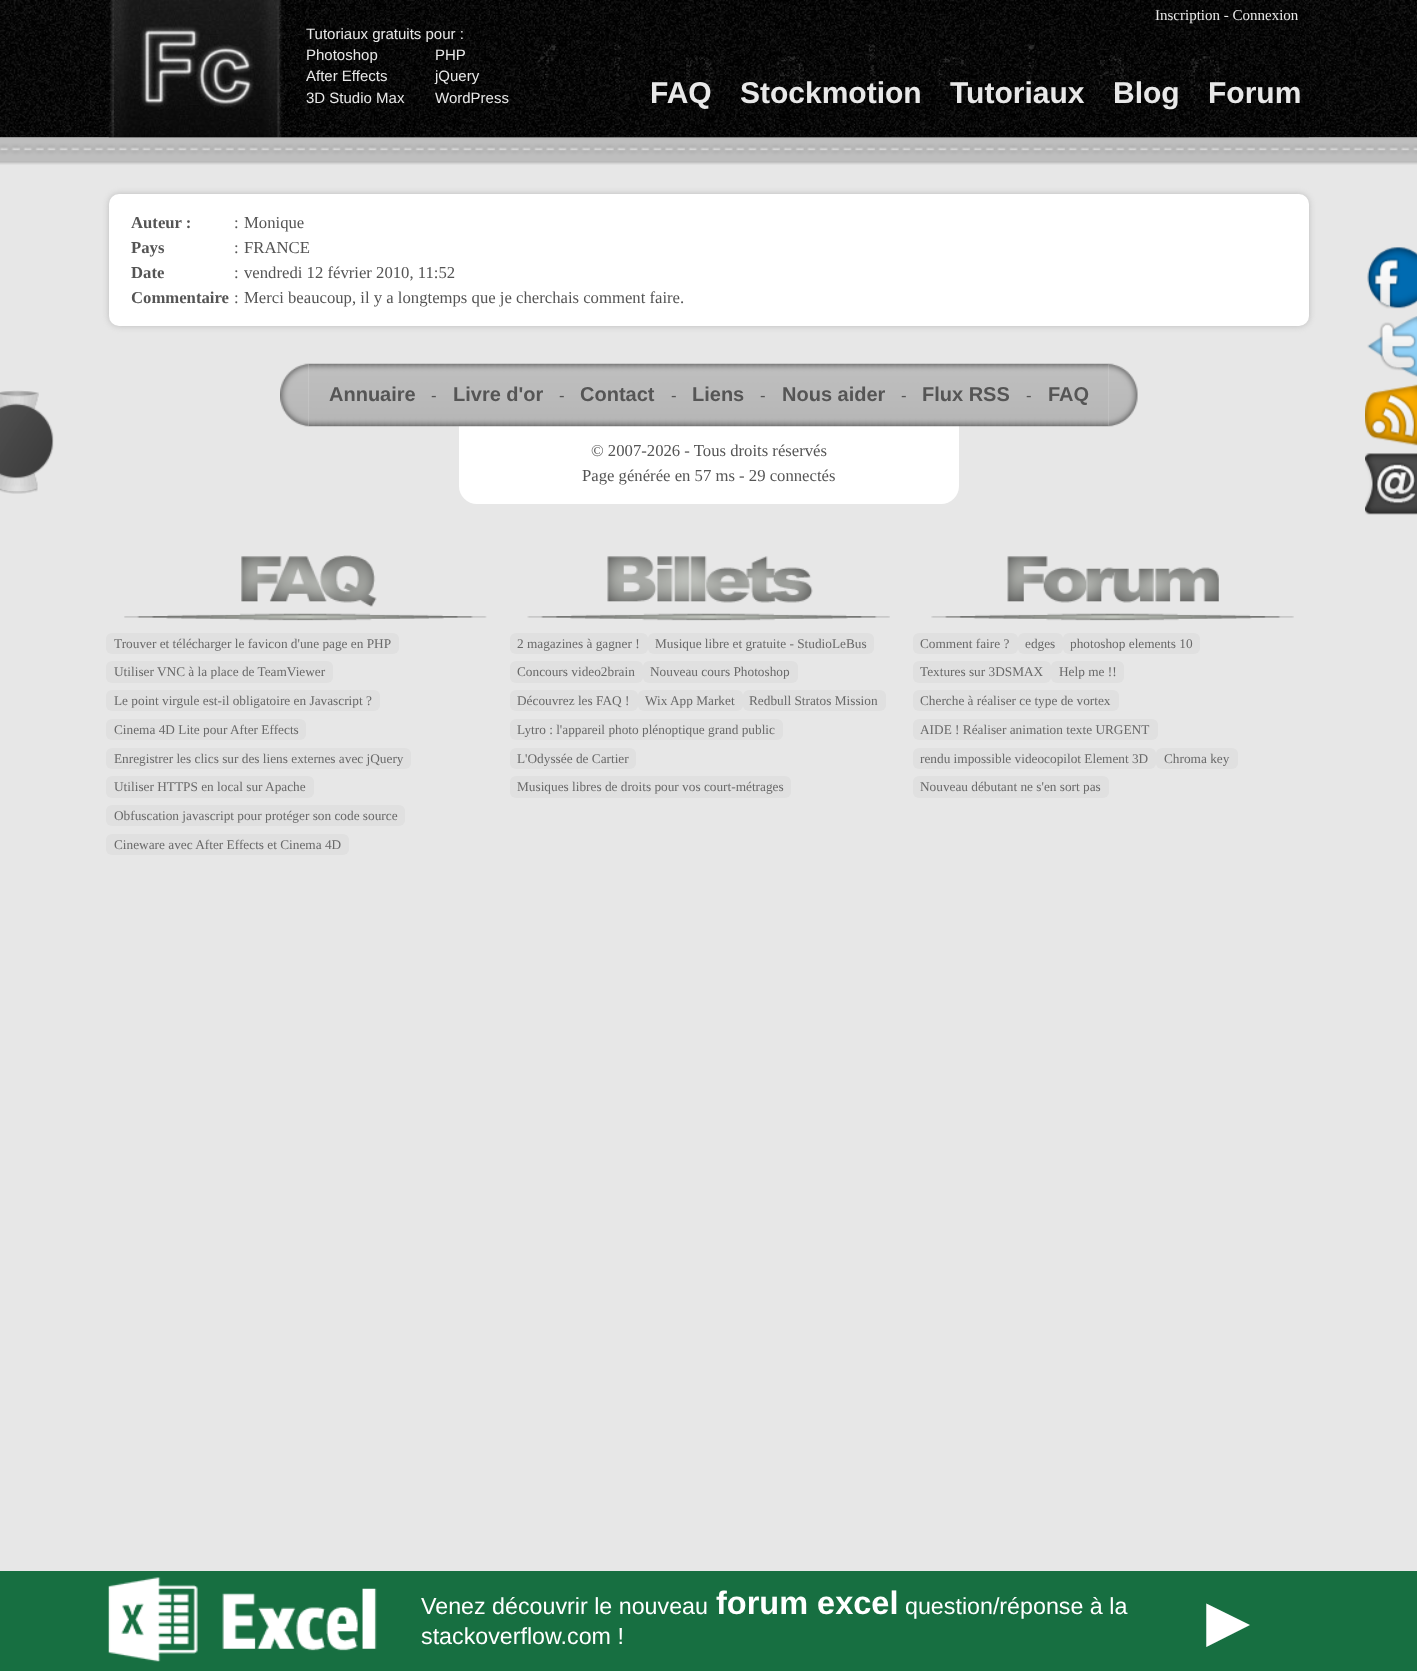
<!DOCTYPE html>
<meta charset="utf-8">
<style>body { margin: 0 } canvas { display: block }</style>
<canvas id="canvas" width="1417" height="1671"></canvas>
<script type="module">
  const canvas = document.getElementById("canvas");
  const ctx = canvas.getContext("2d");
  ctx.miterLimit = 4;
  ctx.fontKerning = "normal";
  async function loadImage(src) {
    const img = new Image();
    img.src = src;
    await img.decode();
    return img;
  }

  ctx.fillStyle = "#e7e7e7";
  ctx.fillRect(0, 0, 1417, 1671);
  ctx.drawImage(await loadImage("img1.png"), 0, 0, 1417, 138);
  ctx.drawImage(await loadImage("img2.png"), 108, 0, 1201, 138);
  ctx.font = "15px Liberation Serif";
  ctx.fillStyle = "#e8e8e8";
  ctx.fillText("Inscription - Connexion", 1155, 20);
  ctx.font = "15px Liberation Sans";
  ctx.fillText("Tutoriaux gratuits pour :", 306, 39);
  ctx.fillText("Photoshop", 306, 60);
  ctx.fillText("PHP", 435, 60);
  ctx.fillText("After Effects", 306, 81);
  ctx.fillText("jQuery", 435, 81);
  ctx.fillText("3D Studio Max", 306, 103);
  ctx.fillText("WordPress", 435, 103);
  ctx.font = "bold 30px Liberation Sans";
  ctx.fillText("FAQ", 650, 103);
  ctx.fillText("Stockmotion", 740, 103);
  ctx.fillText("Tutoriaux", 950, 103);
  ctx.fillText("Blog", 1113, 103);
  ctx.fillText("Forum", 1208, 103);
  ctx.drawImage(await loadImage("img3.png"), 0, 137, 1417, 28);
  ctx.fillStyle = "#bbbbbb";
  ctx.filter = "blur(3px)";
  ctx.beginPath();
  ctx.roundRect(109, 194, 1200, 132, 10);
  ctx.fill();
  ctx.filter = "none";
  ctx.fillStyle = "#ffffff";
  ctx.beginPath();
  ctx.roundRect(109, 194, 1200, 132, 10);
  ctx.fill();
  ctx.font = "bold 16.7px Liberation Serif";
  ctx.fillStyle = "#555555";
  ctx.fillText("Auteur :", 131, 228);
  ctx.font = "16.7px Liberation Serif";
  ctx.fillText(":", 234, 228);
  ctx.fillText("Monique", 244, 228);
  ctx.font = "bold 16.7px Liberation Serif";
  ctx.fillText("Pays", 131, 253);
  ctx.font = "16.7px Liberation Serif";
  ctx.fillText(":", 234, 253);
  ctx.fillText("FRANCE", 244, 253);
  ctx.font = "bold 16.7px Liberation Serif";
  ctx.fillText("Date", 131, 278);
  ctx.font = "16.7px Liberation Serif";
  ctx.fillText(":", 234, 278);
  ctx.fillText("vendredi 12 février 2010, 11:52", 244, 278);
  ctx.font = "bold 16.7px Liberation Serif";
  ctx.fillText("Commentaire", 131, 303);
  ctx.font = "16.7px Liberation Serif";
  ctx.fillText(":", 234, 303);
  ctx.fillText("Merci beaucoup, il y a longtemps que je cherchais comment faire.", 244, 303);
  ctx.drawImage(await loadImage("img4.png"), 0, 390, 39, 21);
  ctx.drawImage(await loadImage("img6.png"), 0, 471, 38, 23);
  ctx.drawImage(await loadImage("img5.png"), 0, 403, 54, 76);
  ctx.drawImage(await loadImage("img7.png"), 1367, 247, 50, 62);
  ctx.drawImage(await loadImage("img8.png"), 1367, 316, 50, 61);
  ctx.drawImage(await loadImage("img9.png"), 1365, 384, 52, 62);
  ctx.drawImage(await loadImage("img10.png"), 1365, 453, 52, 62);
  ctx.fillStyle = "#ffffff";
  ctx.beginPath();
  ctx.roundRect(459, 426, 500, 78, [0, 0, 18, 18]);
  ctx.fill();
  ctx.drawImage(await loadImage("img11.png"), 308, 363, 801, 64);
  ctx.drawImage(await loadImage("img12.png"), 280, 363, 29, 64);
  ctx.font = "bold 20px Liberation Sans";
  ctx.fillStyle = "#555555";
  ctx.fillText("Annuaire", 329, 401);
  ctx.font = "16.7px Liberation Sans";
  ctx.fillText("-", 431, 401);
  ctx.font = "bold 20px Liberation Sans";
  ctx.fillText("Livre d'or", 453, 401);
  ctx.font = "16.7px Liberation Sans";
  ctx.fillText("-", 559, 401);
  ctx.font = "bold 20px Liberation Sans";
  ctx.fillText("Contact", 580, 401);
  ctx.font = "16.7px Liberation Sans";
  ctx.fillText("-", 671, 401);
  ctx.font = "bold 20px Liberation Sans";
  ctx.fillText("Liens", 692, 401);
  ctx.font = "16.7px Liberation Sans";
  ctx.fillText("-", 760, 401);
  ctx.font = "bold 20px Liberation Sans";
  ctx.fillText("Nous aider", 782, 401);
  ctx.font = "16.7px Liberation Sans";
  ctx.fillText("-", 901, 401);
  ctx.font = "bold 20px Liberation Sans";
  ctx.fillText("Flux RSS", 922, 401);
  ctx.font = "16.7px Liberation Sans";
  ctx.fillText("-", 1026, 401);
  ctx.font = "bold 20px Liberation Sans";
  ctx.fillText("FAQ", 1048, 401);
  ctx.drawImage(await loadImage("img13.png"), 1108, 363, 30, 64);
  ctx.font = "16.7px Liberation Serif";
  ctx.fillText("© 2007-2026 - Tous droits réservés", 591, 456);
  ctx.fillText("Page générée en 57 ms - 29 connectés", 582, 481);
  ctx.drawImage(await loadImage("img14.png"), 124, 555, 363, 66);
  ctx.fillStyle = "#e0e0e0";
  ctx.beginPath();
  ctx.roundRect(106, 633, 293, 21, 6);
  ctx.fill();
  ctx.font = "13.3px Liberation Serif";
  ctx.fillStyle = "#696969";
  ctx.fillText("Trouver et télécharger le favicon d'une page en PHP", 114, 648);
  ctx.fillStyle = "#e0e0e0";
  ctx.beginPath();
  ctx.roundRect(106, 661, 227, 22, 6);
  ctx.fill();
  ctx.fillStyle = "#696969";
  ctx.fillText("Utiliser VNC à la place de TeamViewer", 114, 676);
  ctx.fillStyle = "#e0e0e0";
  ctx.beginPath();
  ctx.roundRect(106, 690, 274, 21, 6);
  ctx.fill();
  ctx.fillStyle = "#696969";
  ctx.fillText("Le point virgule est-il obligatoire en Javascript ?", 114, 705);
  ctx.fillStyle = "#e0e0e0";
  ctx.beginPath();
  ctx.roundRect(106, 719, 200, 21, 6);
  ctx.fill();
  ctx.fillStyle = "#696969";
  ctx.fillText("Cinema 4D Lite pour After Effects", 114, 734);
  ctx.fillStyle = "#e0e0e0";
  ctx.beginPath();
  ctx.roundRect(106, 748, 305, 21, 6);
  ctx.fill();
  ctx.fillStyle = "#696969";
  ctx.fillText("Enregistrer les clics sur des liens externes avec jQuery", 114, 763);
  ctx.fillStyle = "#e0e0e0";
  ctx.beginPath();
  ctx.roundRect(106, 776, 208, 22, 6);
  ctx.fill();
  ctx.fillStyle = "#696969";
  ctx.fillText("Utiliser HTTPS en local sur Apache", 114, 791);
  ctx.fillStyle = "#e0e0e0";
  ctx.beginPath();
  ctx.roundRect(106, 805, 299, 21, 6);
  ctx.fill();
  ctx.fillStyle = "#696969";
  ctx.fillText("Obfuscation javascript pour protéger son code source", 114, 820);
  ctx.fillStyle = "#e0e0e0";
  ctx.beginPath();
  ctx.roundRect(106, 834, 243, 21, 6);
  ctx.fill();
  ctx.fillStyle = "#696969";
  ctx.fillText("Cineware avec After Effects et Cinema 4D", 114, 849);
  ctx.drawImage(await loadImage("img15.png"), 527, 556, 363, 65);
  ctx.fillStyle = "#e0e0e0";
  ctx.beginPath();
  ctx.roundRect(510, 633, 138, 21, 6);
  ctx.fill();
  ctx.fillStyle = "#696969";
  ctx.fillText("2 magazines à gagner !", 517, 648);
  ctx.fillStyle = "#e0e0e0";
  ctx.beginPath();
  ctx.roundRect(648, 633, 226, 21, 6);
  ctx.fill();
  ctx.fillStyle = "#696969";
  ctx.fillText("Musique libre et gratuite - StudioLeBus", 655, 648);
  ctx.fillStyle = "#e0e0e0";
  ctx.beginPath();
  ctx.roundRect(510, 661, 133, 22, 6);
  ctx.fill();
  ctx.fillStyle = "#696969";
  ctx.fillText("Concours video2brain", 517, 676);
  ctx.fillStyle = "#e0e0e0";
  ctx.beginPath();
  ctx.roundRect(643, 661, 155, 22, 6);
  ctx.fill();
  ctx.fillStyle = "#696969";
  ctx.fillText("Nouveau cours Photoshop", 650, 676);
  ctx.fillStyle = "#e0e0e0";
  ctx.beginPath();
  ctx.roundRect(510, 690, 128, 21, 6);
  ctx.fill();
  ctx.fillStyle = "#696969";
  ctx.fillText("Découvrez les FAQ !", 517, 705);
  ctx.fillStyle = "#e0e0e0";
  ctx.beginPath();
  ctx.roundRect(638, 690, 105, 21, 6);
  ctx.fill();
  ctx.fillStyle = "#696969";
  ctx.fillText("Wix App Market", 645, 705);
  ctx.fillStyle = "#e0e0e0";
  ctx.beginPath();
  ctx.roundRect(743, 690, 143, 21, 6);
  ctx.fill();
  ctx.fillStyle = "#696969";
  ctx.fillText("Redbull Stratos Mission", 749, 705);
  ctx.fillStyle = "#e0e0e0";
  ctx.beginPath();
  ctx.roundRect(510, 719, 273, 21, 6);
  ctx.fill();
  ctx.fillStyle = "#696969";
  ctx.fillText("Lytro : l'appareil photo plénoptique grand public", 517, 734);
  ctx.fillStyle = "#e0e0e0";
  ctx.beginPath();
  ctx.roundRect(510, 748, 126, 21, 6);
  ctx.fill();
  ctx.fillStyle = "#696969";
  ctx.fillText("L'Odyssée de Cartier", 517, 763);
  ctx.fillStyle = "#e0e0e0";
  ctx.beginPath();
  ctx.roundRect(510, 776, 281, 22, 6);
  ctx.fill();
  ctx.fillStyle = "#696969";
  ctx.fillText("Musiques libres de droits pour vos court-métrages", 517, 791);
  ctx.drawImage(await loadImage("img16.png"), 931, 556, 363, 65);
  ctx.fillStyle = "#e0e0e0";
  ctx.beginPath();
  ctx.roundRect(913, 633, 105, 21, 6);
  ctx.fill();
  ctx.fillStyle = "#696969";
  ctx.fillText("Comment faire ?", 920, 648);
  ctx.fillStyle = "#e0e0e0";
  ctx.beginPath();
  ctx.roundRect(1018, 633, 45, 21, 6);
  ctx.fill();
  ctx.fillStyle = "#696969";
  ctx.fillText("edges", 1025, 648);
  ctx.fillStyle = "#e0e0e0";
  ctx.beginPath();
  ctx.roundRect(1063, 633, 137, 21, 6);
  ctx.fill();
  ctx.fillStyle = "#696969";
  ctx.fillText("photoshop elements 10", 1070, 648);
  ctx.fillStyle = "#e0e0e0";
  ctx.beginPath();
  ctx.roundRect(913, 661, 138, 22, 6);
  ctx.fill();
  ctx.fillStyle = "#696969";
  ctx.fillText("Textures sur 3DSMAX", 920, 676);
  ctx.fillStyle = "#e0e0e0";
  ctx.beginPath();
  ctx.roundRect(1051, 661, 73, 22, 6);
  ctx.fill();
  ctx.fillStyle = "#696969";
  ctx.fillText("Help me !!", 1059, 676);
  ctx.fillStyle = "#e0e0e0";
  ctx.beginPath();
  ctx.roundRect(913, 690, 206, 21, 6);
  ctx.fill();
  ctx.fillStyle = "#696969";
  ctx.fillText("Cherche à réaliser ce type de vortex", 920, 705);
  ctx.fillStyle = "#e0e0e0";
  ctx.beginPath();
  ctx.roundRect(913, 719, 245, 21, 6);
  ctx.fill();
  ctx.fillStyle = "#696969";
  ctx.fillText("AIDE ! Réaliser animation texte URGENT", 920, 734);
  ctx.fillStyle = "#e0e0e0";
  ctx.beginPath();
  ctx.roundRect(913, 748, 243, 21, 6);
  ctx.fill();
  ctx.fillStyle = "#696969";
  ctx.fillText("rendu impossible videocopilot Element 3D", 920, 763);
  ctx.fillStyle = "#e0e0e0";
  ctx.beginPath();
  ctx.roundRect(1156, 748, 82, 21, 6);
  ctx.fill();
  ctx.fillStyle = "#696969";
  ctx.fillText("Chroma key", 1164, 763);
  ctx.fillStyle = "#e0e0e0";
  ctx.beginPath();
  ctx.roundRect(913, 776, 196, 22, 6);
  ctx.fill();
  ctx.fillStyle = "#696969";
  ctx.fillText("Nouveau débutant ne s'en sort pas", 920, 791);
  ctx.fillStyle = "#176f41";
  ctx.fillRect(0, 1571, 1417, 100);
  ctx.drawImage(await loadImage("img17.png"), 108, 1577, 269, 85);
  ctx.font = "23.25px Liberation Sans";
  ctx.fillStyle = "#ffffff";
  ctx.fillText("Venez découvrir le nouveau", 421, 1614);
  ctx.font = "bold 32.5px Liberation Sans";
  ctx.fillText("forum excel", 716, 1614);
  ctx.font = "23.25px Liberation Sans";
  ctx.fillText("question/réponse à la", 905, 1614);
  ctx.fillText("stackoverflow.com !", 421, 1644);
  ctx.font = "73px Liberation Sans";
  ctx.fillText("►", 1192, 1646);
</script>
